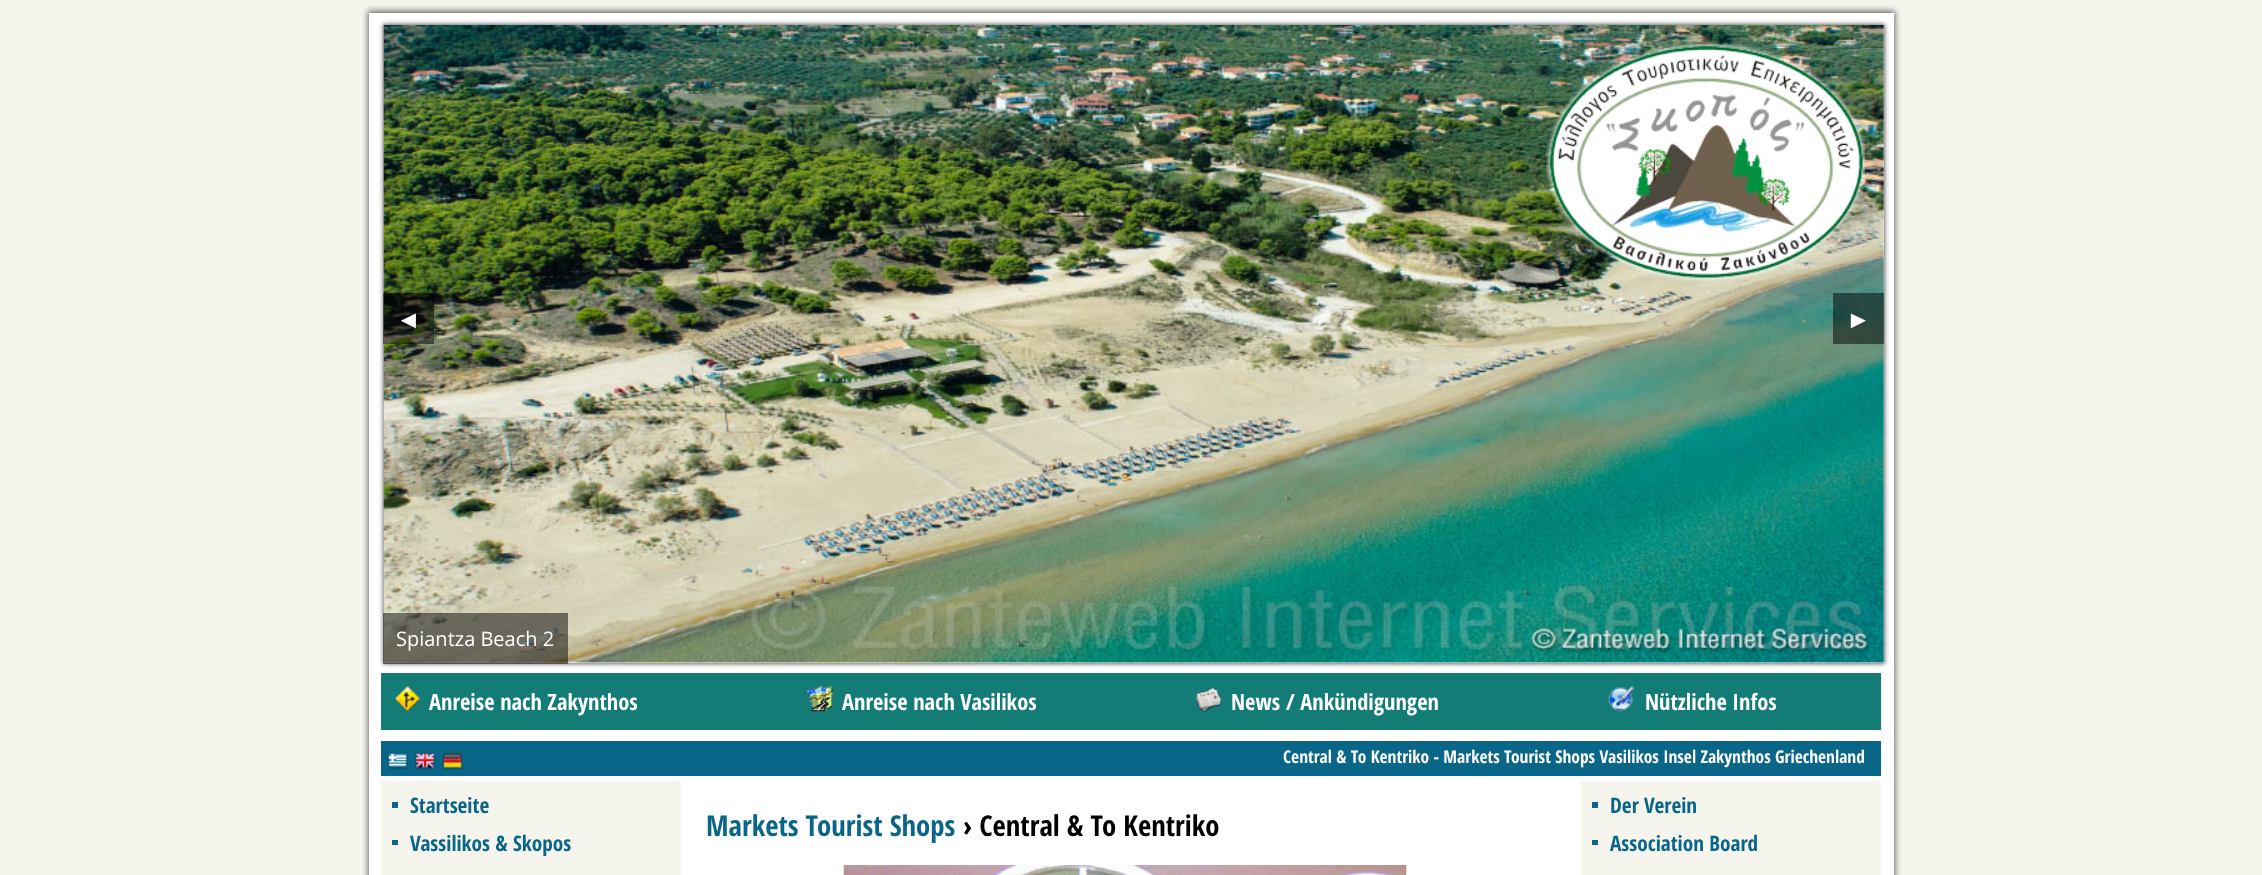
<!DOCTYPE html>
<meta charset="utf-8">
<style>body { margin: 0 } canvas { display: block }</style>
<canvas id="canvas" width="2262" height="875"></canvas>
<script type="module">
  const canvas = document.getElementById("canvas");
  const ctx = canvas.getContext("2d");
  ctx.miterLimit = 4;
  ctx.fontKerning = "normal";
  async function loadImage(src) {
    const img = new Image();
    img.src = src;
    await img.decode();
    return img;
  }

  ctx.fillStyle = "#f5f5ee";
  ctx.fillRect(0, 0, 2262, 875);
  ctx.fillStyle = "#666666";
  ctx.filter = "blur(3px)";
  ctx.beginPath();
  ctx.rect(368, 11, 1527, 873);
  ctx.fill();
  ctx.filter = "none";
  ctx.fillStyle = "#ffffff";
  ctx.fillRect(369, 13, 1525, 862);
  ctx.fillStyle = "#666666";
  ctx.filter = "blur(2px)";
  ctx.beginPath();
  ctx.rect(383, 24, 1502, 640);
  ctx.fill();
  ctx.filter = "none";
  ctx.fillStyle = "#ffffff";
  ctx.fillRect(384, 25, 1500, 638);
  ctx.drawImage(await loadImage("img2.png"), 383, 25, 1501, 638);
  ctx.drawImage(await loadImage("img1.png"), 1546, 43, 319, 238);
  ctx.fillStyle = "rgba(0, 0, 0, 0.5)";
  ctx.fillRect(383, 293, 51, 51);
  ctx.font = "25px Liberation Sans";
  ctx.fillStyle = "#ffffff";
  ctx.fillText("◄", 396, 328);
  ctx.fillStyle = "rgba(0, 0, 0, 0.5)";
  ctx.fillRect(1833, 293, 51, 51);
  ctx.fillStyle = "#ffffff";
  ctx.fillText("►", 1846, 328);
  ctx.fillStyle = "rgba(0, 0, 0, 0.5)";
  ctx.fillRect(383, 613, 185, 51);
  ctx.font = "20px Open Sans";
  ctx.fillStyle = "#ffffff";
  ctx.fillText("Spiantza Beach 2", 396, 646);
  ctx.fillStyle = "#137c77";
  ctx.fillRect(381, 673, 1500, 57);
  ctx.drawImage(await loadImage("img3.png"), 395, 686, 25, 26);
  ctx.font = "bold 22.5px Open Sans Condensed";
  ctx.fillStyle = "#ffffff";
  ctx.fillText("Anreise nach Zakynthos", 429, 710);
  ctx.drawImage(await loadImage("img4.png"), 807, 686, 26, 26);
  ctx.fillText("Anreise nach Vasilikos", 842, 710);
  ctx.drawImage(await loadImage("img5.png"), 1196, 687, 26, 25);
  ctx.fillText("News / Ankündigungen", 1231, 710);
  ctx.drawImage(await loadImage("img6.png"), 1608, 686, 26, 26);
  ctx.fillText("Nützliche Infos", 1645, 710);
  ctx.fillStyle = "#096688";
  ctx.fillRect(381, 741, 1500, 35);
  ctx.drawImage(await loadImage("img7.png"), 387, 752, 21, 18);
  ctx.drawImage(await loadImage("img8.png"), 415, 752, 20, 18);
  ctx.drawImage(await loadImage("img9.png"), 442, 752, 21, 18);
  ctx.font = "bold 17.5px Open Sans Condensed";
  ctx.fillStyle = "#ffffff";
  ctx.fillText("Central & To Kentriko - Markets Tourist Shops Vasilikos Insel Zakynthos Griechenland", 1283, 763);
  ctx.fillStyle = "#f5f5ee";
  ctx.fillRect(381, 781, 300, 94);
  ctx.fillStyle = "#096688";
  ctx.fillRect(392, 802, 6, 6);
  ctx.font = "bold 21.25px Open Sans Condensed";
  ctx.fillText("Startseite", 410, 813);
  ctx.fillRect(392, 840, 6, 5);
  ctx.fillText("Vassilikos & Skopos", 410, 851);
  ctx.font = "bold 28.75px Open Sans Condensed";
  ctx.fillText("Markets Tourist Shops", 706, 836);
  ctx.fillStyle = "#000000";
  ctx.fillText("› Central & To Kentriko", 963, 836);
  ctx.drawImage(await loadImage("img10.png"), 843, 865, 564, 10);
  ctx.fillStyle = "#f5f5ee";
  ctx.fillRect(1581, 781, 300, 94);
  ctx.fillStyle = "#096688";
  ctx.fillRect(1592, 802, 6, 6);
  ctx.font = "bold 21.25px Open Sans Condensed";
  ctx.fillText("Der Verein", 1610, 813);
  ctx.fillRect(1592, 840, 6, 5);
  ctx.fillText("Association Board", 1610, 851);
</script>
